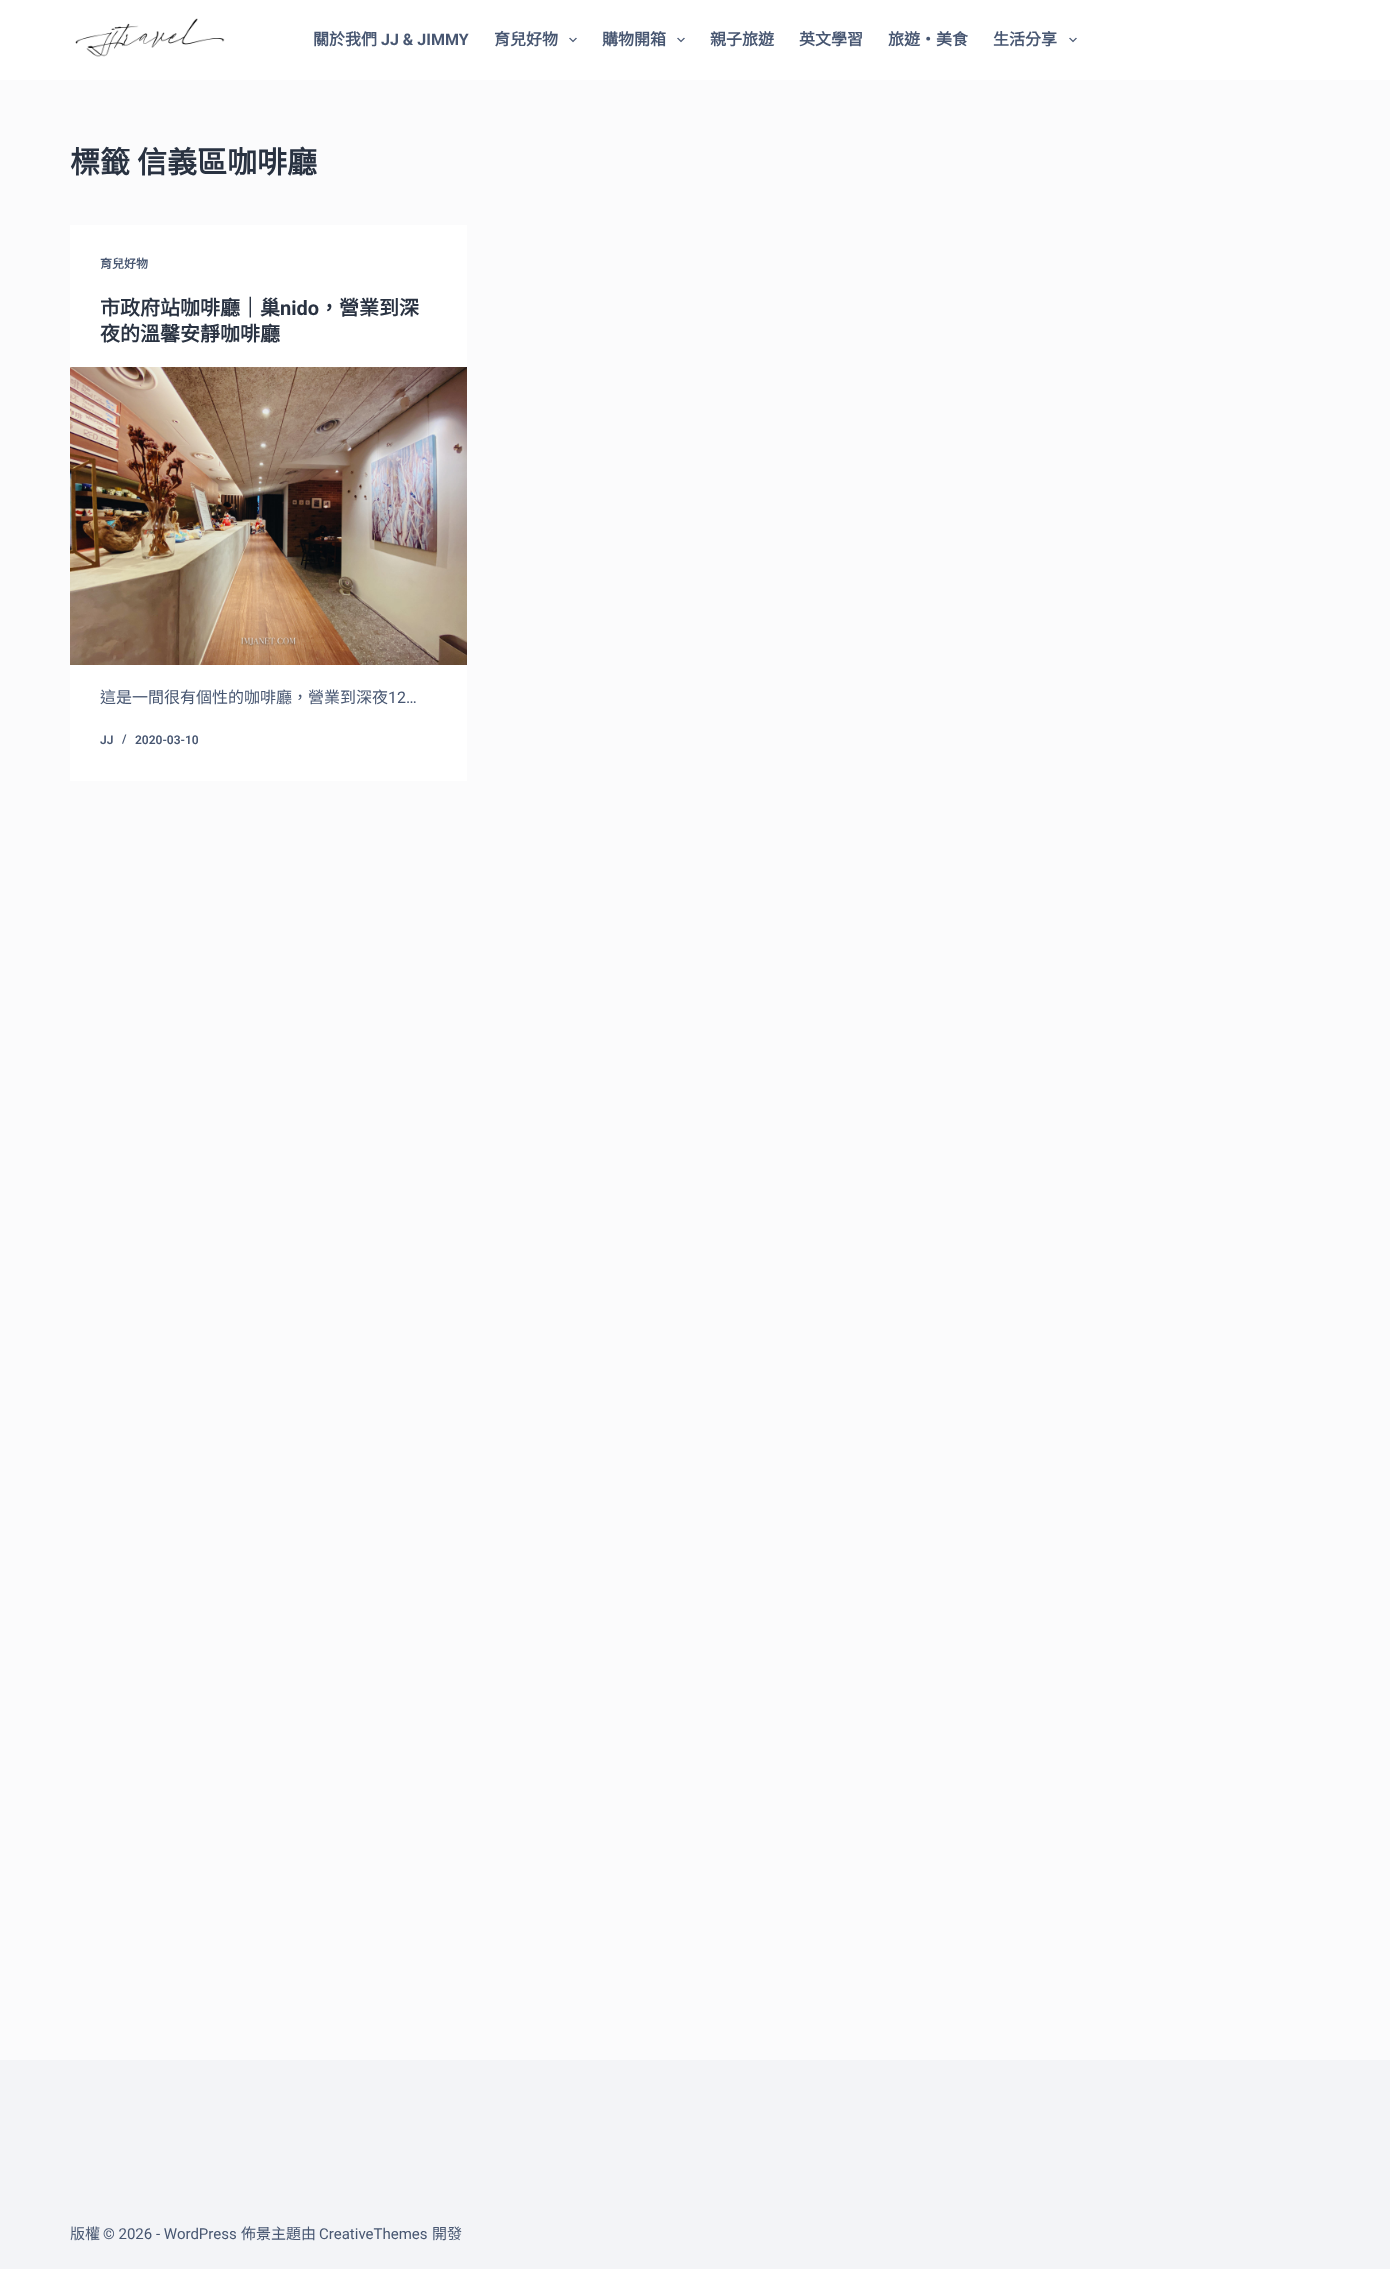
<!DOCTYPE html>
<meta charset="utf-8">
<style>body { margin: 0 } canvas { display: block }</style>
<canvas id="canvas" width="1390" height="2269"></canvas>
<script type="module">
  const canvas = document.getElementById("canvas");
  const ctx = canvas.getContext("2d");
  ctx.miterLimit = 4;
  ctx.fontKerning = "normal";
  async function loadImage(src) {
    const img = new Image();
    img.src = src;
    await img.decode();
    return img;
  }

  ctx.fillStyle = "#fbfbfc";
  ctx.fillRect(0, 0, 1390, 2269);
  ctx.fillStyle = "#ffffff";
  ctx.fillRect(0, 0, 1390, 80);
  ctx.drawImage(await loadImage("img1.png"), 75, 18, 150, 39);
  ctx.font = "bold 16px Noto Sans CJK TC";
  ctx.fillStyle = "#475671";
  ctx.fillText("關於我們", 313, 45);
  ctx.font = "bold 16px Roboto";
  ctx.fillText("JJ & JIMMY", 381, 45);
  ctx.font = "bold 16px Noto Sans CJK TC";
  ctx.fillText("育兒好物", 494, 45);
  ctx.drawImage(await loadImage("img2.png"), 569, 37, 8, 6);
  ctx.fillText("購物開箱", 602, 45);
  ctx.drawImage(await loadImage("img2.png"), 677, 37, 8, 6);
  ctx.fillText("親子旅遊", 710, 45);
  ctx.fillText("英文學習", 799, 45);
  ctx.fillText("旅遊・美食", 888, 45);
  ctx.fillText("生活分享", 993, 45);
  ctx.drawImage(await loadImage("img2.png"), 1069, 37, 8, 6);
  ctx.font = "bold 30px Noto Sans CJK TC";
  ctx.fillStyle = "#293241";
  ctx.fillText("標籤", 70, 173);
  ctx.fillText("信義區咖啡廳", 137, 173);
  ctx.fillStyle = "#ffffff";
  ctx.fillRect(70, 225, 397, 556);
  ctx.font = "bold 12px Noto Sans CJK TC";
  ctx.fillStyle = "#475671";
  ctx.fillText("育兒好物", 100, 268);
  ctx.font = "bold 20px Noto Sans CJK TC";
  ctx.fillStyle = "#293241";
  ctx.fillText("市政府站咖啡廳｜巢", 100, 315);
  ctx.font = "bold 20px Roboto";
  ctx.fillText("nido", 280, 315);
  ctx.font = "bold 20px Noto Sans CJK TC";
  ctx.fillText("，營業到深", 319, 315);
  ctx.fillText("夜的溫馨安靜咖啡廳", 100, 341);
  ctx.drawImage(await loadImage("img3.png"), 70, 367, 397, 298);
  ctx.font = "16px Noto Sans CJK TC";
  ctx.fillStyle = "#475671";
  ctx.fillText("這是一間很有個性的咖啡廳，營業到深夜", 100, 703);
  ctx.font = "16px Roboto";
  ctx.fillText("12…", 388, 703);
  ctx.font = "600 12px Roboto";
  ctx.fillText("JJ", 100, 744);
  ctx.fillText("/", 122, 743);
  ctx.fillText("2020-03-10", 135, 744);
  ctx.fillStyle = "#f3f4f7";
  ctx.fillRect(0, 2060, 1390, 209);
  ctx.font = "15px Noto Sans CJK TC";
  ctx.fillStyle = "#475671";
  ctx.fillText("版權", 70, 2239);
  ctx.font = "15px Roboto";
  ctx.fillText("© 2026 - WordPress", 103, 2239);
  ctx.font = "15px Noto Sans CJK TC";
  ctx.fillText("佈景主題由", 241, 2239);
  ctx.font = "15px Roboto";
  ctx.fillText("CreativeThemes", 319, 2239);
  ctx.font = "15px Noto Sans CJK TC";
  ctx.fillText("開發", 432, 2239);
</script>
